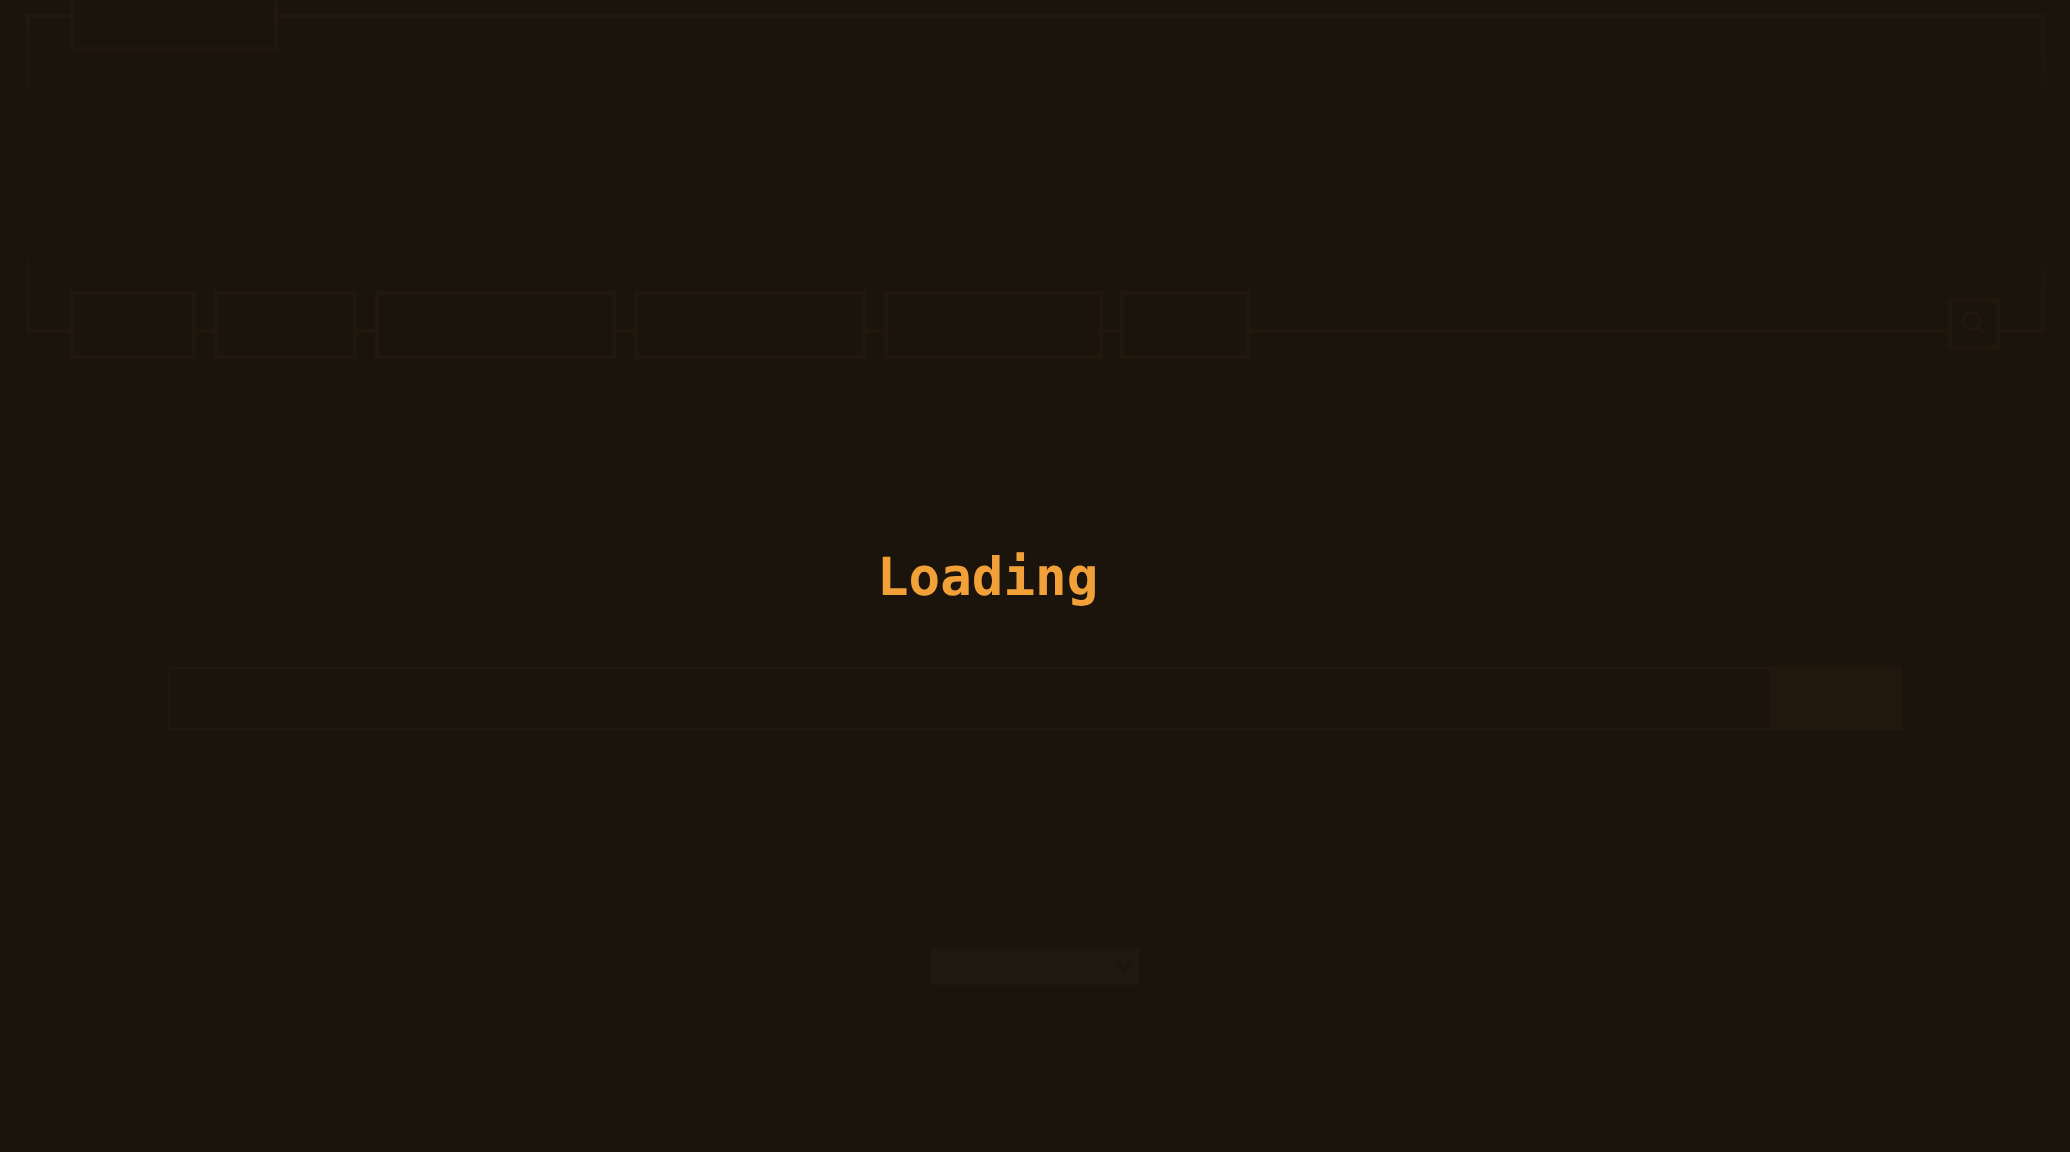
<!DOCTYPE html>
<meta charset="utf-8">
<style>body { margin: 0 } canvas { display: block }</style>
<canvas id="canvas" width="2070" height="1152"></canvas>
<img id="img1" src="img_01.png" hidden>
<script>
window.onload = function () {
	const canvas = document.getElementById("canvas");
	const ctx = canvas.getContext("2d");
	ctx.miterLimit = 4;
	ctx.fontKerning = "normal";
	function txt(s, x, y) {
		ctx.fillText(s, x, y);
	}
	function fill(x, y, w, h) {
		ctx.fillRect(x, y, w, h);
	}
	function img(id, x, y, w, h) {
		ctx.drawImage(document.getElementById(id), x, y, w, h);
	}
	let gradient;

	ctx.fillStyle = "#1B140C";
	fill(0, 0, 2070, 1152);
	ctx.fillStyle = "#20170D";
	fill(26, 14, 2018, 4);
	fill(26, 329, 2018, 4);
	gradient = ctx.createLinearGradient(28, 18, 28, 329);
	gradient.addColorStop(0, "#20170D");
	gradient.addColorStop(0.35, "#1B140C");
	gradient.addColorStop(0.65, "#1B140C");
	gradient.addColorStop(1, "#20170D");
	ctx.fillStyle = gradient;
	fill(26, 18, 4, 311);
	ctx.fillStyle = "#1B140C";
	fill(74, 14, 200, 4);
	ctx.strokeStyle = "#20170D";
	ctx.lineWidth = 4;
	ctx.strokeRect(72, -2, 204, 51);
	gradient = ctx.createLinearGradient(2042, 18, 2042, 329);
	gradient.addColorStop(0, "#20170D");
	gradient.addColorStop(0.35, "#1B140C");
	gradient.addColorStop(0.65, "#1B140C");
	gradient.addColorStop(1, "#20170D");
	ctx.fillStyle = gradient;
	fill(2041, 18, 4, 311);
	ctx.fillStyle = "#1B140C";
	fill(74, 329, 118, 4);
	ctx.strokeRect(72, 293, 122, 64);
	fill(218, 329, 135, 4);
	ctx.strokeRect(216, 293, 139, 64);
	fill(379, 329, 233, 4);
	ctx.strokeRect(377, 293, 237, 64);
	fill(638, 329, 224, 4);
	ctx.strokeRect(636, 293, 228, 64);
	fill(888, 329, 211, 4);
	ctx.strokeRect(886, 293, 215, 64);
	fill(1124, 329, 122, 4);
	ctx.strokeRect(1122, 293, 126, 64);
	fill(1952, 329, 44, 4);
	ctx.strokeRect(1950, 300, 48, 48);
	img("img1", 1961, 311, 26, 25);
	ctx.lineWidth = 2;
	ctx.strokeRect(169, 668, 1601, 61);
	ctx.fillStyle = "#20170D";
	fill(1771, 667, 131, 63);
	ctx.fillStyle = "#1F1811";
	ctx.beginPath();
	ctx.rect(932, 950, 206, 34);
	ctx.fill();
	ctx.strokeStyle = "#1F1810";
	ctx.stroke();
	ctx.beginPath();
	ctx.moveTo(1116.5, 963);
	ctx.lineTo(1123.5, 970);
	ctx.lineTo(1130.5, 963);
	ctx.strokeStyle = "#1A140C";
	ctx.lineWidth = 3.5;
	ctx.stroke();
	ctx.font = "bold 52.5px DejaVu Sans Mono";
	ctx.fillStyle = "#F2A139";
	txt("Loading", 877, 595);
};
</script>
